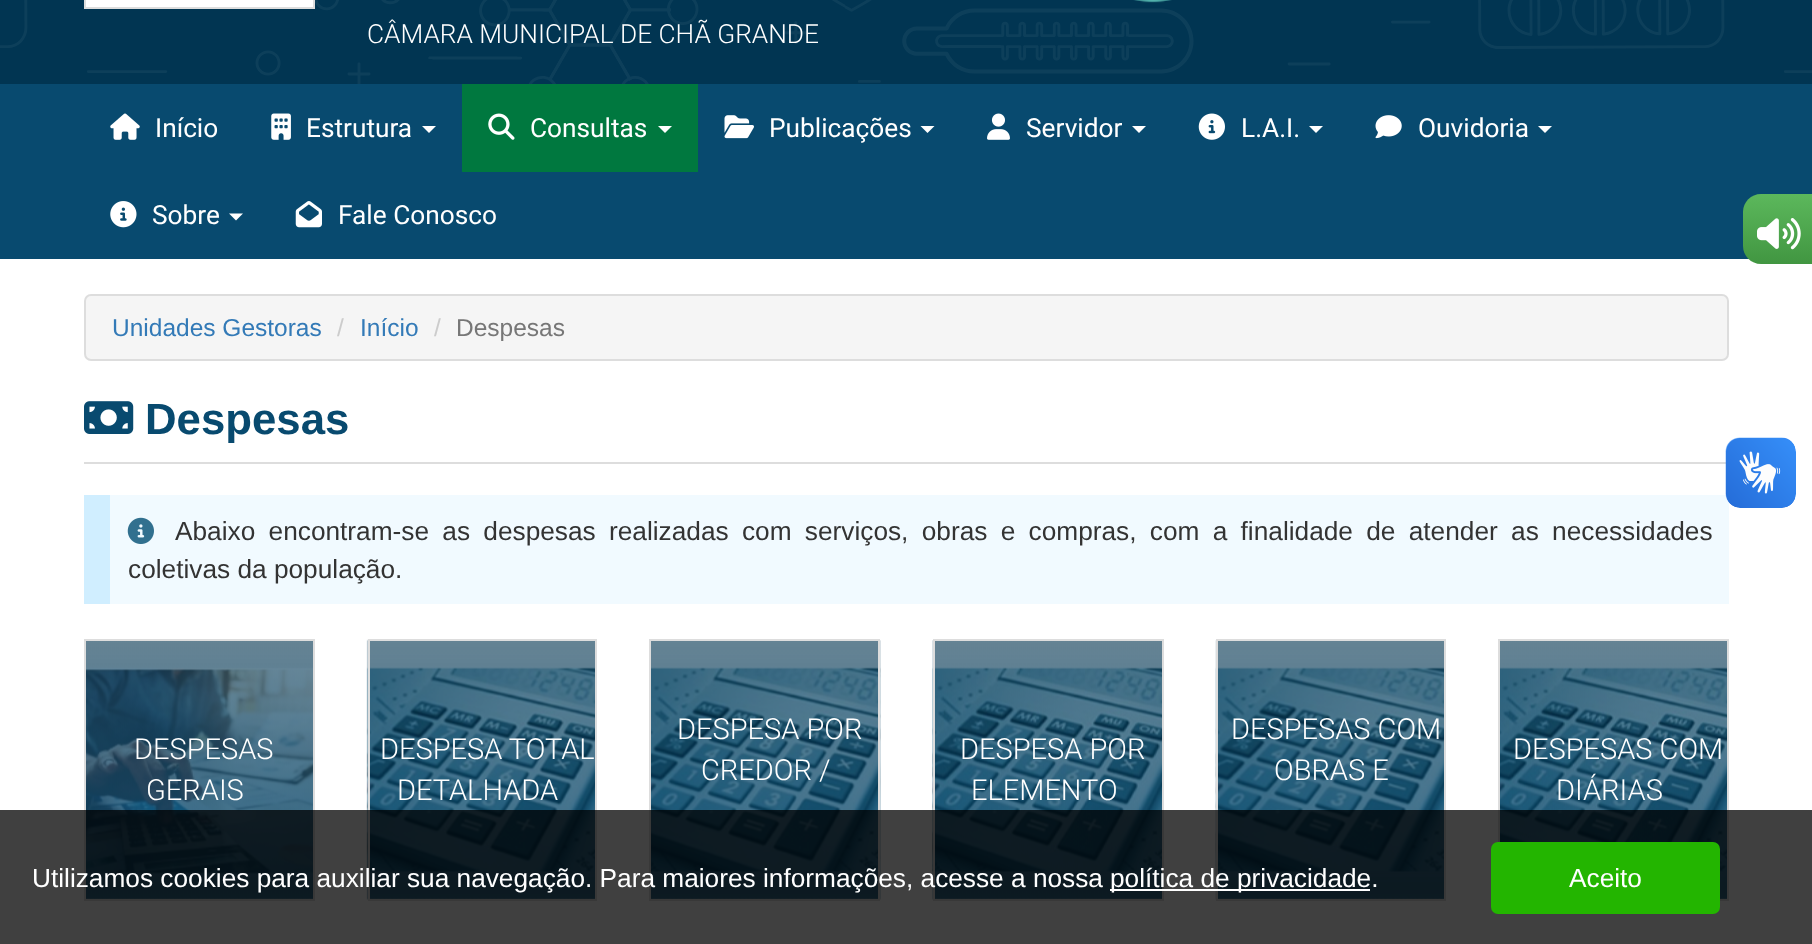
<!DOCTYPE html>
<meta charset="utf-8">
<style>body { margin: 0 } canvas { display: block }</style>
<canvas id="canvas" width="1812" height="944"></canvas>
<img id="img1" src="img_01.png" hidden>
<img id="img2" src="img_02.png" hidden>
<img id="img3" src="img_03.png" hidden>
<img id="img4" src="img_04.png" hidden>
<img id="img5" src="img_05.png" hidden>
<img id="img6" src="img_06.png" hidden>
<img id="img7" src="img_07.png" hidden>
<img id="img8" src="img_08.png" hidden>
<img id="img9" src="img_09.png" hidden>
<img id="img10" src="img_10.png" hidden>
<img id="img11" src="img_11.png" hidden>
<img id="img12" src="img_12.png" hidden>
<img id="img13" src="img_13.png" hidden>
<img id="img14" src="img_14.png" hidden>
<img id="img15" src="img_15.png" hidden>
<img id="img16" src="img_16.png" hidden>
<img id="img17" src="img_17.png" hidden>
<img id="img18" src="img_18.png" hidden>
<img id="img19" src="img_19.png" hidden>
<img id="img20" src="img_20.png" hidden>
<img id="img21" src="img_21.png" hidden>
<img id="img22" src="img_22.png" hidden>
<script>
window.onload = function () {
	const canvas = document.getElementById("canvas");
	const ctx = canvas.getContext("2d");
	ctx.miterLimit = 4;
	ctx.fontKerning = "normal";
	function txt(s, x, y) {
		ctx.fillText(s, x, y);
	}
	function fill(x, y, w, h) {
		ctx.fillRect(x, y, w, h);
	}
	function round(x, y, w, h, r) {
		ctx.beginPath();
		ctx.roundRect(x, y, w, h, r);
		ctx.fill();
	}
	function img(id, x, y, w, h) {
		ctx.drawImage(document.getElementById(id), x, y, w, h);
	}
	let gradient;

	ctx.fillStyle = "#FFFFFF";
	fill(0, 0, 1812, 944);
	ctx.fillStyle = "#013552";
	fill(0, 0, 1812, 84);
	img("img1", 0, 0, 1812, 84);
	ctx.fillStyle = "#FFFFFF";
	ctx.beginPath();
	ctx.rect(85, -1, 229, 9);
	ctx.fill();
	ctx.strokeStyle = "#DDDDDD";
	ctx.lineWidth = 2;
	ctx.stroke();
	img("img2", 1133, 0, 39, 3);
	ctx.fillStyle = "#084A6F";
	fill(0, 84, 1812, 175);
	img("img3", 110, 113, 30, 27);
	img("img4", 271, 113, 20, 27);
	ctx.fillStyle = "#FFFFFF";
	ctx.beginPath();
	ctx.moveTo(422, 126);
	ctx.lineTo(436, 126);
	ctx.lineTo(429, 133);
	ctx.closePath();
	ctx.fill();
	ctx.fillStyle = "#00783F";
	fill(462, 84, 236, 88);
	img("img5", 488, 113, 27, 27);
	ctx.fillStyle = "#FFFFFF";
	ctx.beginPath();
	ctx.moveTo(658, 126);
	ctx.lineTo(672, 126);
	ctx.lineTo(665, 133);
	ctx.closePath();
	ctx.fill();
	img("img6", 724, 115, 30, 24);
	ctx.beginPath();
	ctx.moveTo(920.5, 126);
	ctx.lineTo(934.5, 126);
	ctx.lineTo(927.5, 133);
	ctx.closePath();
	ctx.fill();
	img("img7", 987, 113, 23, 27);
	ctx.beginPath();
	ctx.moveTo(1132, 126);
	ctx.lineTo(1146, 126);
	ctx.lineTo(1139, 133);
	ctx.closePath();
	ctx.fill();
	img("img8", 1198, 113, 27, 27);
	ctx.beginPath();
	ctx.moveTo(1309, 126);
	ctx.lineTo(1323, 126);
	ctx.lineTo(1316, 133);
	ctx.closePath();
	ctx.fill();
	img("img9", 1375, 115, 27, 24);
	ctx.beginPath();
	ctx.moveTo(1538, 126);
	ctx.lineTo(1552, 126);
	ctx.lineTo(1545, 133);
	ctx.closePath();
	ctx.fill();
	img("img10", 110, 201, 27, 27);
	ctx.beginPath();
	ctx.moveTo(229, 213.5);
	ctx.lineTo(243, 213.5);
	ctx.lineTo(236, 220.5);
	ctx.closePath();
	ctx.fill();
	img("img11", 295, 201, 27, 27);
	gradient = ctx.createLinearGradient(1778, 194, 1778, 264);
	gradient.addColorStop(0, "#5CB85C");
	gradient.addColorStop(1, "#419641");
	ctx.fillStyle = gradient;
	ctx.beginPath();
	ctx.moveTo(1761, 194);
	ctx.lineTo(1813, 194);
	ctx.lineTo(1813, 264);
	ctx.lineTo(1761, 264);
	ctx.bezierCurveTo(1751, 264, 1743, 256, 1743, 246);
	ctx.lineTo(1743, 212);
	ctx.bezierCurveTo(1743, 202, 1751, 194, 1761, 194);
	ctx.closePath();
	ctx.fill();
	img("img12", 1757, 218, 44, 32);
	ctx.fillStyle = "#F5F5F5";
	ctx.beginPath();
	ctx.roundRect(85, 295, 1643, 65, 6);
	ctx.fill();
	ctx.stroke();
	ctx.fillStyle = "#DDDDDD";
	fill(84, 462, 1645, 2);
	img("img13", 84, 401, 50, 33);
	ctx.fillStyle = "#F1FAFF";
	fill(110, 495, 1619, 109);
	ctx.fillStyle = "#D0EEFF";
	fill(84, 495, 26, 109);
	img("img14", 127, 517, 27, 27);
	ctx.fillStyle = "#EFEFEF";
	fill(86, 641, 227, 258);
	img("img15", 86, 641, 227, 258);
	ctx.strokeRect(85, 640, 229, 260);
	fill(370, 641, 225, 258);
	img("img16", 366, 639, 229, 261);
	ctx.strokeRect(369, 640, 227, 260);
	fill(651, 641, 227, 258);
	img("img17", 651, 640, 230, 260);
	ctx.strokeRect(650, 640, 229, 260);
	fill(935, 641, 227, 258);
	img("img18", 932, 640, 230, 260);
	ctx.strokeRect(934, 640, 229, 260);
	fill(1218, 641, 226, 258);
	img("img19", 1215, 640, 229, 260);
	ctx.strokeRect(1217, 640, 228, 260);
	fill(1500, 641, 227, 258);
	img("img20", 1500, 641, 227, 258);
	ctx.strokeRect(1499, 640, 229, 260);
	img("img21", 1725, 437, 71, 71);
	img("img22", 1726, 438, 70, 70);
	ctx.fillStyle = "rgba(0, 0, 0, 0.75)";
	fill(0, 810, 1812, 134);
	ctx.fillStyle = "#FFFFFF";
	fill(1110, 889, 260, 2);
	ctx.fillStyle = "#23B500";
	round(1491, 842, 229, 72, 7);
	ctx.font = "300 26.25px Roboto";
	ctx.fillStyle = "#FFFFFF";
	txt("CÂMARA MUNICIPAL DE CHÃ GRANDE", 367, 43);
	ctx.font = "26.25px Roboto";
	txt("Início", 155, 137);
	txt("Estrutura", 306, 137);
	txt("Consultas", 530, 137);
	txt("Publicações", 769, 137);
	txt("Servidor", 1026, 137);
	txt("L.A.I.", 1241, 137);
	txt("Ouvidoria", 1418, 137);
	txt("Sobre", 152, 224);
	txt("Fale Conosco", 338, 224);
	ctx.font = "24.5px Liberation Sans";
	ctx.fillStyle = "#337AB7";
	txt("Unidades Gestoras", 112, 336);
	ctx.fillStyle = "#CCCCCC";
	txt("/", 337, 336);
	ctx.fillStyle = "#337AB7";
	txt("Início", 360, 336);
	ctx.fillStyle = "#CCCCCC";
	txt("/", 434, 336);
	ctx.fillStyle = "#777777";
	txt("Despesas", 456, 336);
	ctx.font = "bold 43.75px Liberation Sans";
	ctx.fillStyle = "#084A6F";
	txt("Despesas", 145, 434);
	ctx.wordSpacing = "6px";
	ctx.font = "26.25px Liberation Sans";
	ctx.fillStyle = "#333333";
	txt("Abaixo encontram-se as despesas realizadas com serviços, obras e compras, com a finalidade de atender as necessidades", 175, 540);
	ctx.wordSpacing = "0px";
	txt("coletivas da população.", 128, 578);
	ctx.font = "300 29px Roboto";
	ctx.fillStyle = "#FFFFFF";
	txt("DESPESAS", 134, 759);
	txt("GERAIS", 146, 800);
	txt("DESPESA TOTAL", 380, 759);
	txt("DETALHADA", 397, 800);
	txt("DESPESA POR", 677, 739);
	txt("CREDOR /", 701, 780);
	txt("DESPESA POR", 960, 759);
	txt("ELEMENTO", 971, 800);
	txt("DESPESAS COM", 1231, 739);
	txt("OBRAS E", 1274, 780);
	txt("DESPESAS COM", 1513, 759);
	txt("DIÁRIAS", 1556, 800);
	ctx.font = "26.25px Liberation Sans";
	txt("Utilizamos cookies para auxiliar sua navegação. Para maiores informações, acesse a nossa", 32, 887);
	txt("política de privacidade.", 1110, 887);
	txt("Aceito", 1569, 887);
};
</script>
